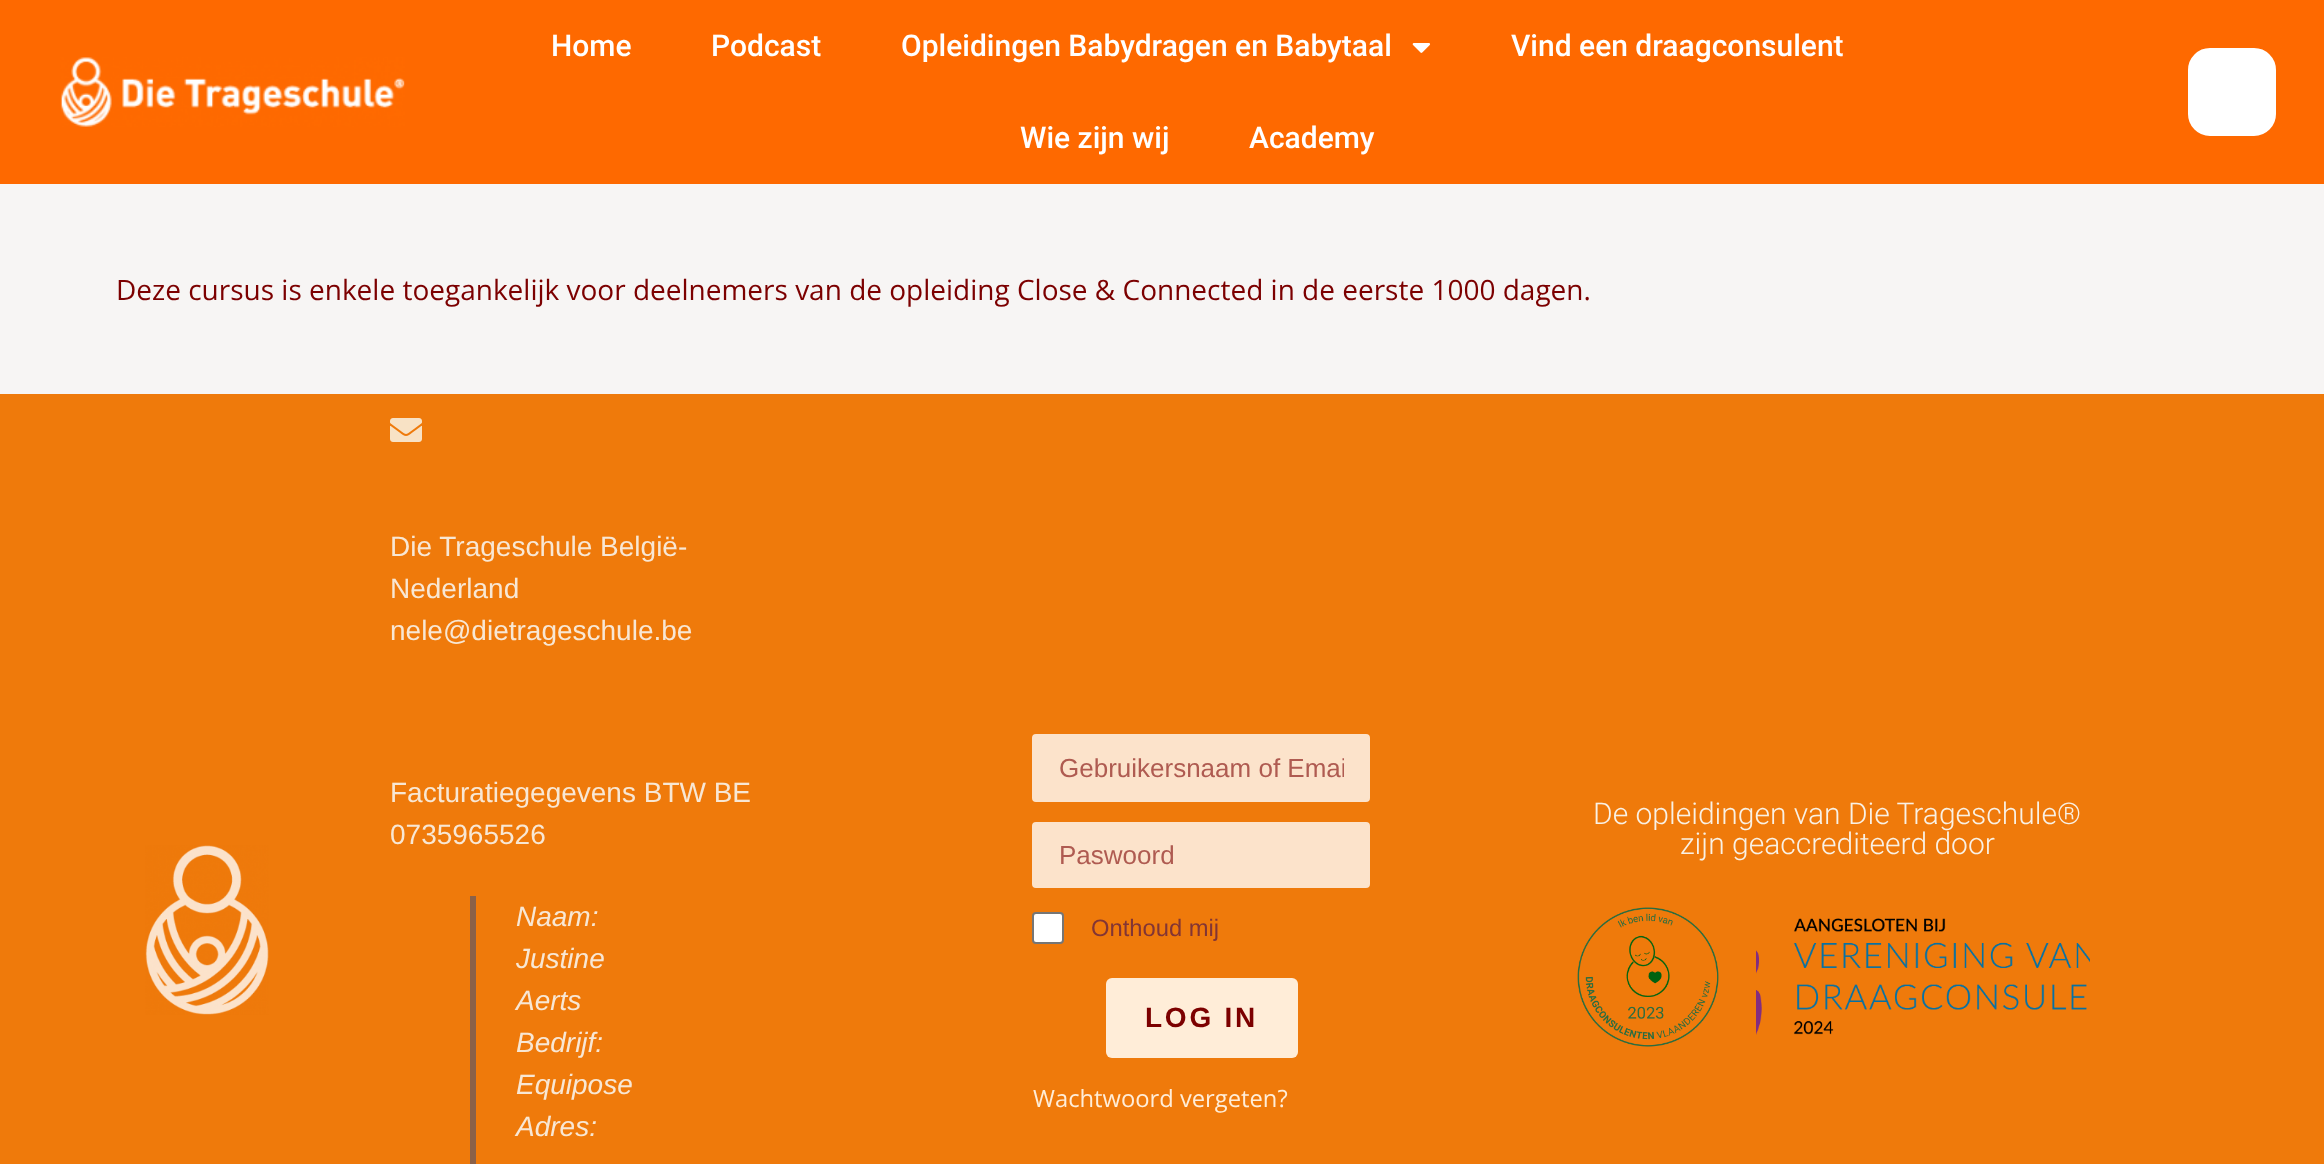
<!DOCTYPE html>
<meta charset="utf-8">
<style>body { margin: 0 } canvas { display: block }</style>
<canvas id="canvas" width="2324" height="1164"></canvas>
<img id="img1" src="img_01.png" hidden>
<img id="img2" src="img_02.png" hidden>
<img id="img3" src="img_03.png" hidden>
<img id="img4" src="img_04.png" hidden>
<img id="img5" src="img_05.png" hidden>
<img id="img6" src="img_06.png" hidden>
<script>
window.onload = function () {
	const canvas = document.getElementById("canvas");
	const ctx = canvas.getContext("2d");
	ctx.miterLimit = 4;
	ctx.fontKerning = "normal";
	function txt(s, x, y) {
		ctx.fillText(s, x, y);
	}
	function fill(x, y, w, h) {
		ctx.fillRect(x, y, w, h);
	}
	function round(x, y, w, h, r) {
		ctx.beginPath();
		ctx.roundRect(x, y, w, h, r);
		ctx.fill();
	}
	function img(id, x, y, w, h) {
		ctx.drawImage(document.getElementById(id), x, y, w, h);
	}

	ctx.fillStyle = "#F7F5F4";
	fill(0, 0, 2324, 1164);
	ctx.fillStyle = "#FE6900";
	fill(0, 0, 2324, 184);
	img("img1", 60, 57, 345, 70);
	img("img2", 1412, 43, 19, 10);
	ctx.fillStyle = "#FFFFFF";
	ctx.beginPath();
	ctx.roundRect(2187, 47, 90, 90, 23);
	ctx.fill();
	ctx.strokeStyle = "#FE6900";
	ctx.lineWidth = 2;
	ctx.stroke();
	ctx.fillStyle = "#EF7A0B";
	fill(0, 394, 2324, 770);
	img("img3", 390, 418, 32, 24);
	ctx.fillStyle = "#8B6148";
	fill(470, 896, 6, 268);
	ctx.fillStyle = "#FCE3CB";
	ctx.beginPath();
	ctx.roundRect(1033, 735, 336, 66, 3);
	ctx.fill();
	ctx.strokeStyle = "#FCE3CB";
	ctx.stroke();
	ctx.beginPath();
	ctx.roundRect(1033, 823, 336, 64, 3);
	ctx.fill();
	ctx.stroke();
	ctx.fillStyle = "#FFFFFF";
	ctx.beginPath();
	ctx.roundRect(1033, 913, 30, 30, 3);
	ctx.fill();
	ctx.strokeStyle = "#767676";
	ctx.stroke();
	ctx.fillStyle = "#FFEDD8";
	round(1106, 978, 192, 80, 6);
	img("img4", 1577, 907, 142, 140);
	img("img5", 1756, 918, 334, 117);
	img("img6", 145, 845, 124, 170);
	ctx.font = "500 30px Roboto";
	ctx.fillStyle = "#FFFFFF";
	txt("Home", 551, 56);
	txt("Podcast", 711, 56);
	txt("Opleidingen Babydragen en Babytaal", 901, 56);
	txt("Vind een draagconsulent", 1511, 56);
	txt("Wie zijn wij", 1020, 148);
	txt("Academy", 1249, 148);
	ctx.font = "28px Open Sans";
	ctx.fillStyle = "#7C0000";
	txt("Deze cursus is enkele toegankelijk voor deelnemers van de opleiding Close & Connected in de eerste 1000 dagen.", 116, 300);
	ctx.font = "28px Liberation Sans";
	ctx.fillStyle = "#F8E7D4";
	txt("Die Trageschule België-", 390, 556);
	txt("Nederland", 390, 598);
	txt("nele@dietrageschule.be", 390, 640);
	txt("Facturatiegegevens BTW BE", 390, 802);
	txt("0735965526", 390, 844);
	ctx.font = "italic 28px Liberation Sans";
	txt("Naam:", 516, 926);
	txt("Justine", 516, 968);
	txt("Aerts", 516, 1010);
	txt("Bedrijf:", 516, 1052);
	txt("Equipose", 516, 1094);
	txt("Adres:", 516, 1136);
	ctx.save();
	ctx.beginPath();
	ctx.rect(1058, 752, 286, 30);
	ctx.clip();
	ctx.font = "26px Liberation Sans";
	ctx.fillStyle = "#AF5B51";
	txt("Gebruikersnaam of Emai", 1059, 777);
	ctx.restore();
	ctx.font = "26px Liberation Sans";
	ctx.fillStyle = "#AF5B51";
	txt("Paswoord", 1059, 864);
	ctx.font = "23.75px Liberation Sans";
	ctx.fillStyle = "#823535";
	txt("Onthoud mij", 1091, 936);
	ctx.letterSpacing = "2.75px";
	ctx.font = "bold 28px Liberation Sans";
	ctx.fillStyle = "#7C0000";
	txt("LOG IN", 1145, 1027);
	ctx.letterSpacing = "0px";
	ctx.font = "23.75px Open Sans";
	ctx.fillStyle = "#FFEDD8";
	txt("Wachtwoord vergeten?", 1033, 1107);
	ctx.font = "300 30px Roboto";
	ctx.fillStyle = "#F9F1E5";
	txt("De opleidingen van Die Trageschule®", 1593, 824);
	txt("zijn geaccrediteerd door", 1680, 854);
};
</script>
